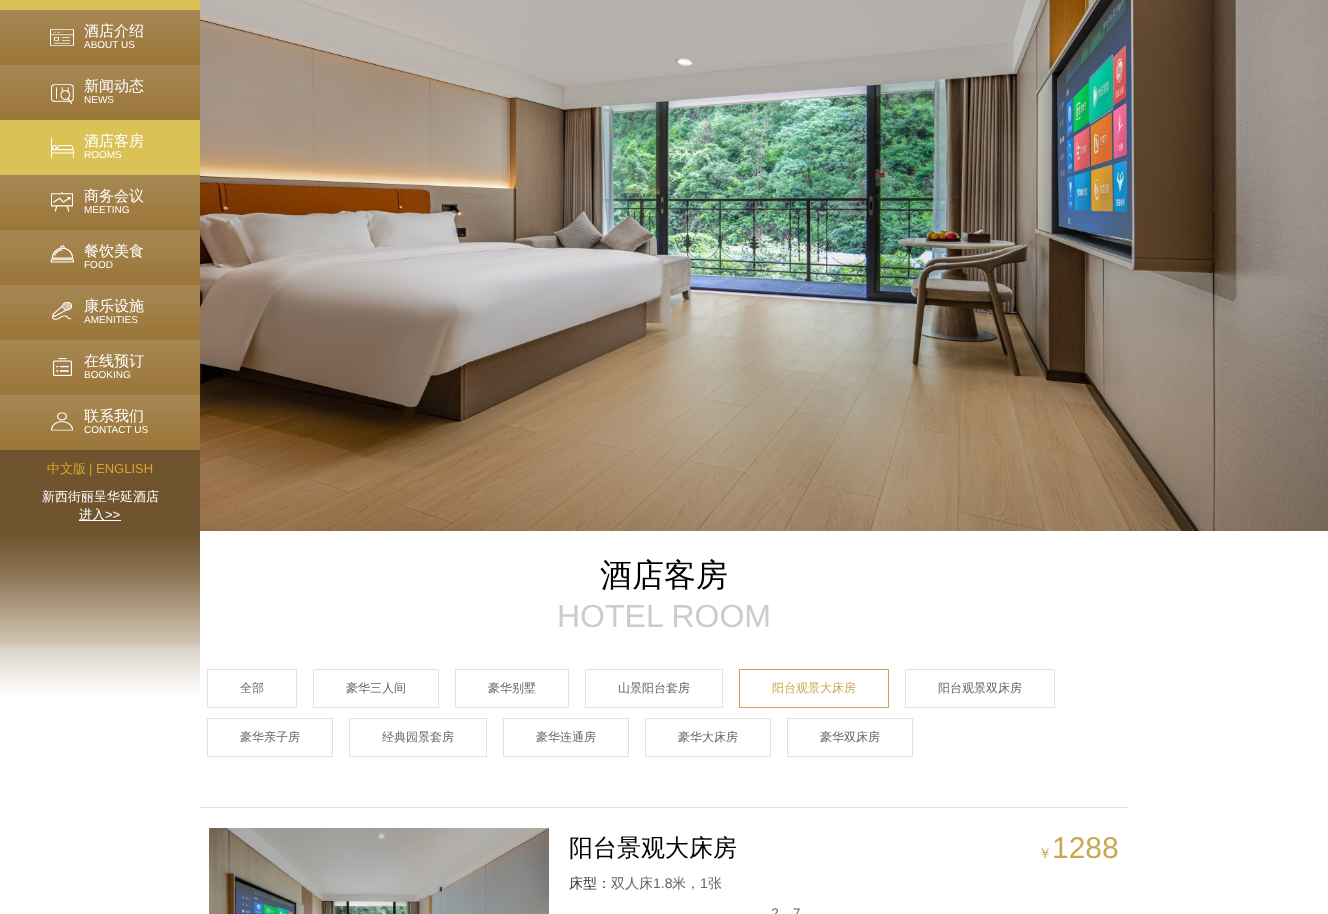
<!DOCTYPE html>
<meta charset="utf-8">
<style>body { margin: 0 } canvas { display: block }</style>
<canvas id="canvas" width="1328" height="914"></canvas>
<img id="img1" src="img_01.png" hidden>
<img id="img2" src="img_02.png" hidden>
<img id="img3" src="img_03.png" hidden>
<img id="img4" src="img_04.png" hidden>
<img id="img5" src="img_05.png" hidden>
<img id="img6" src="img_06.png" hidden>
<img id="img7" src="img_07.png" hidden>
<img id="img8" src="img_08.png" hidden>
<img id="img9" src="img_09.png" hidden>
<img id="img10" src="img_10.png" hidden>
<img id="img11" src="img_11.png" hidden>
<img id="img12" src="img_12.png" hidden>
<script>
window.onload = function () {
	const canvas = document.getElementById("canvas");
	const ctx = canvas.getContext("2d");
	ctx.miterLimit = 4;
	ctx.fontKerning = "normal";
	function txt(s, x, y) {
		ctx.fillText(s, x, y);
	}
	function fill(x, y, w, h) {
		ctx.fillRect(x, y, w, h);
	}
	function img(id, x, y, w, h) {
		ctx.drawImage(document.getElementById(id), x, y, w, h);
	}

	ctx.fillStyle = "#FFFFFF";
	fill(0, 0, 1328, 914);
	img("img1", 0, 450, 200, 244);
	ctx.fillStyle = "#DBC256";
	fill(0, 0, 200, 10);
	img("img2", 0, 10, 200, 55);
	img("img3", 50, 29, 24, 17);
	img("img2", 0, 65, 200, 55);
	img("img4", 51, 84, 23, 20);
	fill(0, 120, 200, 55);
	img("img5", 51, 138, 23, 20);
	img("img2", 0, 175, 200, 55);
	img("img6", 51, 192, 22, 20);
	img("img2", 0, 230, 200, 55);
	img("img7", 50, 245, 24, 18);
	img("img2", 0, 285, 200, 55);
	img("img8", 52, 302, 20, 18);
	img("img2", 0, 340, 200, 55);
	img("img9", 53, 358, 19, 18);
	img("img2", 0, 395, 200, 55);
	img("img10", 51, 412, 22, 19);
	ctx.fillStyle = "#FFFFFF";
	fill(79, 520, 42, 1);
	img("img11", 200, 0, 1128, 531);
	ctx.strokeStyle = "#E2E2E2";
	ctx.strokeRect(207.5, 669.5, 89, 38);
	ctx.strokeRect(313.5, 669.5, 125, 38);
	ctx.strokeRect(455.5, 669.5, 113, 38);
	ctx.strokeRect(585.5, 669.5, 137, 38);
	ctx.strokeStyle = "#CAA851";
	ctx.strokeRect(739.5, 669.5, 149, 38);
	ctx.strokeStyle = "#E2E2E2";
	ctx.strokeRect(905.5, 669.5, 149, 38);
	ctx.strokeRect(207.5, 718.5, 125, 38);
	ctx.strokeRect(349.5, 718.5, 137, 38);
	ctx.strokeRect(503.5, 718.5, 125, 38);
	ctx.strokeRect(645.5, 718.5, 125, 38);
	ctx.strokeRect(787.5, 718.5, 125, 38);
	ctx.fillStyle = "#E2E2E2";
	fill(199, 807, 930, 1);
	img("img12", 209, 828, 340, 86);
	ctx.font = "500 15px WenQuanYi Zen Hei";
	ctx.fillStyle = "#FFFFFF";
	txt("酒店介绍", 84, 36);
	ctx.font = "10px Liberation Sans";
	txt("ABOUT US", 84, 48);
	ctx.font = "500 15px WenQuanYi Zen Hei";
	txt("新闻动态", 84, 91);
	ctx.font = "10px Liberation Sans";
	txt("NEWS", 84, 103);
	ctx.font = "500 15px WenQuanYi Zen Hei";
	txt("酒店客房", 84, 146);
	ctx.font = "10px Liberation Sans";
	txt("ROOMS", 84, 158);
	ctx.font = "500 15px WenQuanYi Zen Hei";
	txt("商务会议", 84, 201);
	ctx.font = "10px Liberation Sans";
	txt("MEETING", 84, 213);
	ctx.font = "500 15px WenQuanYi Zen Hei";
	txt("餐饮美食", 84, 256);
	ctx.font = "10px Liberation Sans";
	txt("FOOD", 84, 268);
	ctx.font = "500 15px WenQuanYi Zen Hei";
	txt("康乐设施", 84, 311);
	ctx.font = "10px Liberation Sans";
	txt("AMENITIES", 84, 323);
	ctx.font = "500 15px WenQuanYi Zen Hei";
	txt("在线预订", 84, 366);
	ctx.font = "10px Liberation Sans";
	txt("BOOKING", 84, 378);
	ctx.font = "500 15px WenQuanYi Zen Hei";
	txt("联系我们", 84, 421);
	ctx.font = "10px Liberation Sans";
	txt("CONTACT US", 84, 433);
	ctx.font = "500 13px WenQuanYi Zen Hei";
	ctx.fillStyle = "#D9A32B";
	txt("中文版", 47, 473);
	ctx.font = "13px Liberation Sans";
	txt("| ENGLISH", 89, 473);
	ctx.font = "500 13px WenQuanYi Zen Hei";
	ctx.fillStyle = "#FFFFFF";
	txt("新西街丽呈华延酒店", 42, 501);
	txt("进入", 79, 519);
	ctx.font = "13px Liberation Sans";
	txt(">>", 105, 519);
	ctx.font = "500 32px WenQuanYi Zen Hei";
	ctx.fillStyle = "#000000";
	txt("酒店客房", 600, 586);
	ctx.font = "32px Liberation Sans";
	ctx.fillStyle = "#CCCCCC";
	txt("HOTEL ROOM", 557, 627);
	ctx.font = "500 12px WenQuanYi Zen Hei";
	ctx.fillStyle = "#666666";
	txt("全部", 240, 692);
	txt("豪华三人间", 346, 692);
	txt("豪华别墅", 488, 692);
	txt("山景阳台套房", 618, 692);
	ctx.fillStyle = "#CAA851";
	txt("阳台观景大床房", 772, 692);
	ctx.fillStyle = "#666666";
	txt("阳台观景双床房", 938, 692);
	txt("豪华亲子房", 240, 741);
	txt("经典园景套房", 382, 741);
	txt("豪华连通房", 536, 741);
	txt("豪华大床房", 678, 741);
	txt("豪华双床房", 820, 741);
	ctx.font = "500 24px WenQuanYi Zen Hei";
	ctx.fillStyle = "#000000";
	txt("阳台景观大床房", 569, 856);
	ctx.font = "500 14px WenQuanYi Zen Hei";
	ctx.fillStyle = "#CAA851";
	txt("￥", 1038, 858);
	ctx.font = "30px Liberation Sans";
	txt("1288", 1052, 858);
	ctx.font = "500 14px WenQuanYi Zen Hei";
	ctx.fillStyle = "#333333";
	txt("床型：", 569, 888);
	ctx.fillStyle = "#666666";
	txt("双人床", 611, 888);
	ctx.font = "14px Liberation Sans";
	txt("1.8", 653, 888);
	ctx.font = "500 14px WenQuanYi Zen Hei";
	txt("米，", 672, 888);
	ctx.font = "14px Liberation Sans";
	txt("1", 700, 888);
	ctx.font = "500 14px WenQuanYi Zen Hei";
	txt("张", 708, 888);
	ctx.font = "14px Liberation Sans";
	txt("2—7", 771, 918);
};
</script>
